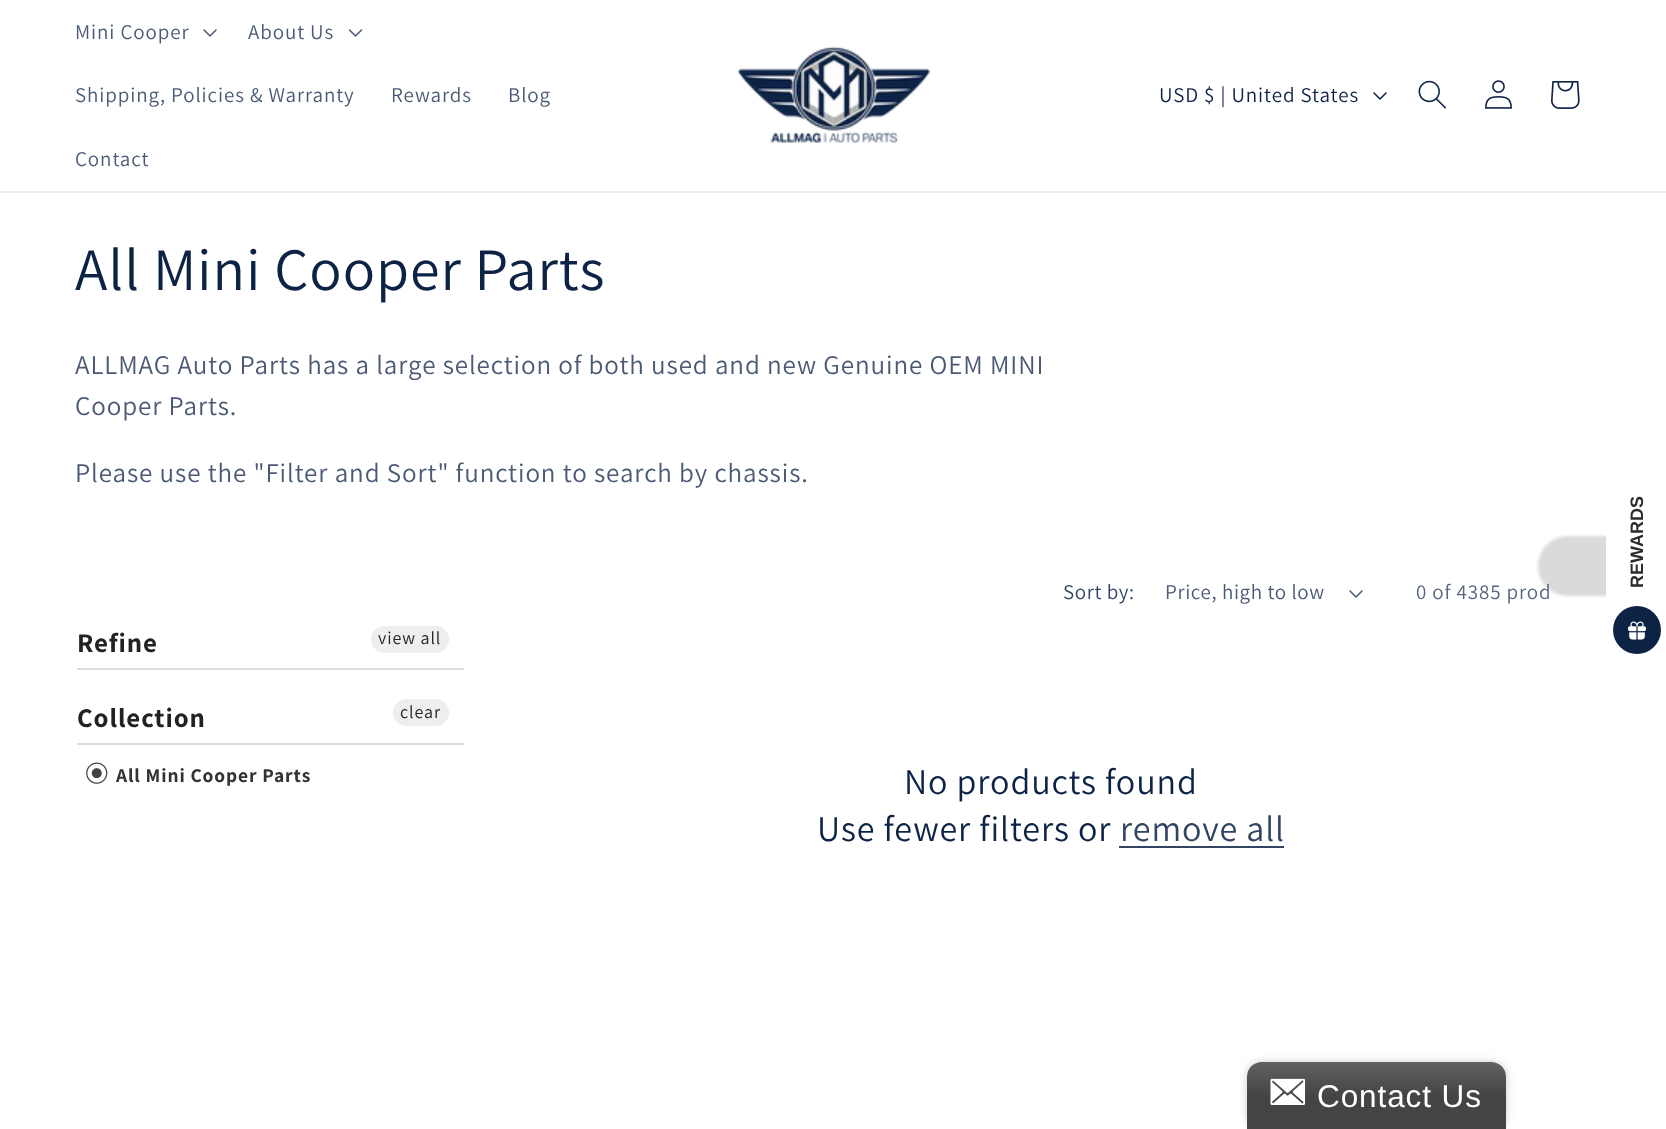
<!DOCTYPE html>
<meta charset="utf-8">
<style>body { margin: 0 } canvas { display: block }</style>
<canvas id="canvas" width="1666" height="1129"></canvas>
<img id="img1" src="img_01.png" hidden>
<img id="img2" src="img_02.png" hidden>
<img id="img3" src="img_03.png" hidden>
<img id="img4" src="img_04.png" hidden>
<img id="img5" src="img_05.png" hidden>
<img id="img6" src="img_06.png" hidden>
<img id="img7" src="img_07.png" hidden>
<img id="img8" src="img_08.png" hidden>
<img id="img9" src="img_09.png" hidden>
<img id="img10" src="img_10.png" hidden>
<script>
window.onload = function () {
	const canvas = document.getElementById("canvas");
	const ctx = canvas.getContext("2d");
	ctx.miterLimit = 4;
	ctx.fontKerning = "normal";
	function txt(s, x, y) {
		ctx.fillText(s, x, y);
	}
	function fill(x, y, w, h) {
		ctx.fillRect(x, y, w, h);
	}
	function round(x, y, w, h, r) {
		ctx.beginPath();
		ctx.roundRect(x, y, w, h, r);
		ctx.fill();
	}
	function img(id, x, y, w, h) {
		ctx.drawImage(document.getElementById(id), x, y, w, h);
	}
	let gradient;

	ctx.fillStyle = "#FFFFFF";
	fill(0, 0, 1666, 1129);
	ctx.fillStyle = "#ECEDF0";
	fill(0, 191, 1666, 2);
	img("img1", 203, 29, 14, 8);
	img("img2", 348, 29, 15, 8);
	img("img3", 737, 46, 194, 97);
	img("img4", 1373, 92, 14, 8);
	img("img5", 1418, 80, 28, 29);
	img("img6", 1485, 80, 27, 29);
	img("img7", 1551, 81, 29, 28);
	img("img1", 1349, 590, 14, 8);
	ctx.fillStyle = "#DDDDDD";
	fill(77, 668, 387, 2);
	ctx.fillStyle = "#EEEEEE";
	round(371, 626, 78, 27, 13.5);
	round(393, 699, 56, 27, 13.5);
	img("img8", 86, 762, 22, 22);
	ctx.fillStyle = "#DDDDDD";
	fill(77, 743, 387, 2);
	ctx.fillStyle = "#314462";
	fill(1119, 846, 165, 2);
	ctx.fillStyle = "#DADADA";
	ctx.filter = "blur(1.5px)";
	ctx.beginPath();
	ctx.roundRect(1538, 536, 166, 60, 33);
	ctx.fill();
	ctx.filter = "none";
	ctx.fillStyle = "#FFFFFF";
	ctx.beginPath();
	ctx.moveTo(1606, 631);
	ctx.lineTo(1606, 499);
	ctx.bezierCurveTo(1606, 481, 1621, 466, 1640, 466);
	ctx.lineTo(1666, 466);
	ctx.lineTo(1666, 664);
	ctx.lineTo(1640, 664);
	ctx.bezierCurveTo(1621, 664, 1606, 649, 1606, 631);
	ctx.closePath();
	ctx.fill();
	ctx.fillStyle = "#0D2346";
	ctx.beginPath();
	ctx.arc(1637, 630, 24, 0, Math.PI * 2);
	ctx.fill();
	img("img9", 1628, 621, 18, 19);
	ctx.fillStyle = "rgba(0, 0, 0, 0.2)";
	ctx.filter = "blur(4px)";
	ctx.beginPath();
	ctx.roundRect(1247, 1062, 259, 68, 15);
	ctx.fill();
	ctx.filter = "none";
	gradient = ctx.createLinearGradient(1376, 1062, 1376, 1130);
	gradient.addColorStop(0, "#626262");
	gradient.addColorStop(0.5, "#444444");
	ctx.fillStyle = gradient;
	ctx.beginPath();
	ctx.moveTo(1262, 1062);
	ctx.lineTo(1491, 1062);
	ctx.bezierCurveTo(1499.5, 1062, 1506, 1068.5, 1506, 1077);
	ctx.lineTo(1506, 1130);
	ctx.lineTo(1247, 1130);
	ctx.lineTo(1247, 1077);
	ctx.bezierCurveTo(1247, 1068.5, 1253.5, 1062, 1262, 1062);
	ctx.closePath();
	ctx.fill();
	img("img10", 1270, 1078, 36, 27);
	ctx.letterSpacing = "0.9px";
	ctx.font = "21px Assistant";
	ctx.fillStyle = "#4A5A74";
	txt("Mini Cooper", 75, 39);
	txt("About Us", 248, 39);
	txt("Shipping, Policies & Warranty", 75, 102);
	txt("Rewards", 391, 102);
	txt("Blog", 508, 102);
	txt("Contact", 75, 166);
	ctx.fillStyle = "#0D2346";
	txt("USD $ | United States", 1159, 102);
	ctx.font = "60px Assistant";
	txt("All Mini Cooper Parts", 75, 290);
	ctx.font = "27px Assistant";
	ctx.fillStyle = "#4A5A74";
	txt("ALLMAG Auto Parts has a large selection of both used and new Genuine OEM MINI", 75, 374);
	txt("Cooper Parts.", 75, 415);
	txt("Please use the \"Filter and Sort\" function to search by chassis.", 75, 482);
	ctx.letterSpacing = "0.6px";
	ctx.font = "21px Assistant";
	ctx.fillStyle = "#314462";
	txt("Sort by:", 1063, 599);
	ctx.fillStyle = "#4A5A74";
	txt("Price, high to low", 1165, 599);
	ctx.letterSpacing = "0.9px";
	ctx.fillStyle = "#56657E";
	txt("0 of 4385 prod", 1416, 599);
	ctx.font = "bold 27px Assistant";
	ctx.fillStyle = "#222222";
	txt("Refine", 77, 652);
	ctx.font = "18px Assistant";
	txt("view all", 378, 644);
	txt("clear", 400, 718);
	ctx.font = "bold 19.5px Assistant";
	ctx.fillStyle = "#333333";
	txt("All Mini Cooper Parts", 116, 782);
	ctx.font = "bold 27px Assistant";
	ctx.fillStyle = "#222222";
	txt("Collection", 77, 727);
	ctx.font = "36px Assistant";
	ctx.fillStyle = "#0D2346";
	txt("No products found", 904, 794);
	txt("Use fewer filters or", 817, 841);
	ctx.fillStyle = "#314462";
	txt("remove all", 1120, 841);
	ctx.letterSpacing = "0px";
	ctx.font = "bold 18px Liberation Sans";
	ctx.fillStyle = "#2C2B2B";
	ctx.save();
	ctx.translate(1643, 588);
	ctx.rotate(-90 * Math.PI / 180);
	ctx.fillText("REWARDS", 0, 0);
	ctx.restore();
	ctx.letterSpacing = "0.9px";
	ctx.font = "31.5px Liberation Sans";
	ctx.fillStyle = "#FFFFFF";
	txt("Contact Us", 1317, 1107);
};
</script>
